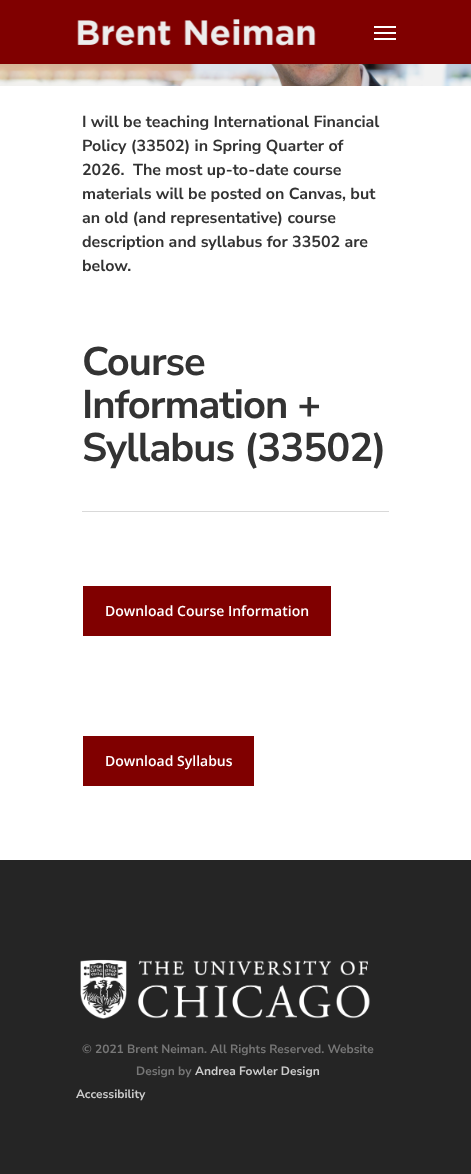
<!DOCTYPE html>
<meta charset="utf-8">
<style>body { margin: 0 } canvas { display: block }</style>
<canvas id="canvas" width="471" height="1174"></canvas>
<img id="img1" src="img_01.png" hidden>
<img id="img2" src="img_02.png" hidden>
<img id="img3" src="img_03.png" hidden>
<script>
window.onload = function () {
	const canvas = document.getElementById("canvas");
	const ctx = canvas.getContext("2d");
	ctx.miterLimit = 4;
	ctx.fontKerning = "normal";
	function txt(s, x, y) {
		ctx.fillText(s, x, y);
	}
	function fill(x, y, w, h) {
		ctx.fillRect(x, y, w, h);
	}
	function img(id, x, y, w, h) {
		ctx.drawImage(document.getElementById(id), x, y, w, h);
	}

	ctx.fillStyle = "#FFFFFF";
	fill(0, 0, 471, 1174);
	ctx.fillStyle = "#800000";
	fill(0, 0, 471, 64);
	img("img1", 77, 19, 239, 27);
	ctx.fillStyle = "#FFFFFF";
	fill(374, 26, 22, 2);
	fill(374, 38, 22, 2);
	fill(374, 32, 22, 2);
	img("img2", 0, 64, 471, 22);
	ctx.fillStyle = "#D9D9D9";
	fill(82, 511, 307, 1);
	ctx.fillStyle = "#800000";
	fill(83, 586, 248, 50);
	fill(83, 736, 171, 50);
	ctx.fillStyle = "#252525";
	fill(0, 860, 471, 314);
	img("img3", 80, 959, 290, 60);
	ctx.font = "200 16px Nunito Sans";
	ctx.fillStyle = "#333333";
	txt("I will be teaching International Financial", 82, 127);
	txt("Policy (33502) in Spring Quarter of", 82, 151);
	txt("2026.  The most up-to-date course", 82, 175);
	txt("materials will be posted on Canvas, but", 82, 199);
	txt("an old (and representative) course", 82, 223);
	txt("description and syllabus for 33502 are", 82, 247);
	txt("below.", 82, 271);
	ctx.letterSpacing = "-1px";
	ctx.font = "200 40px Nunito Sans";
	txt("Course", 82, 375);
	txt("Information +", 82, 418);
	txt("Syllabus (33502)", 82, 461);
	ctx.letterSpacing = "0px";
	ctx.font = "600 14px Open Sans";
	ctx.fillStyle = "#FFFFFF";
	txt("Download Course Information", 105, 616);
	txt("Download Syllabus", 105, 766);
	ctx.font = "200 12px Nunito Sans";
	ctx.fillStyle = "#777777";
	txt("© 2021 Brent Neiman. All Rights Reserved. Website", 82, 1053);
	txt("Design by", 136, 1075);
	ctx.fillStyle = "#CCCCCC";
	txt("Andrea Fowler Design", 195, 1075);
	txt("Accessibility", 76, 1098);
};
</script>
